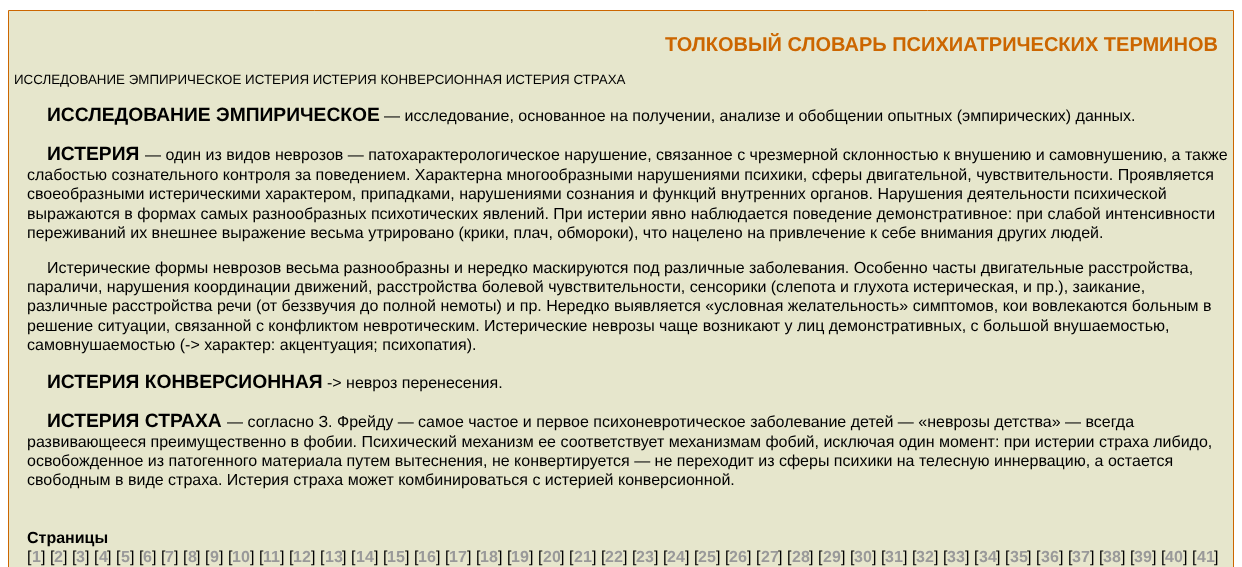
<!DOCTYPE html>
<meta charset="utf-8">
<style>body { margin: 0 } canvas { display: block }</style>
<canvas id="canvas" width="1242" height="567"></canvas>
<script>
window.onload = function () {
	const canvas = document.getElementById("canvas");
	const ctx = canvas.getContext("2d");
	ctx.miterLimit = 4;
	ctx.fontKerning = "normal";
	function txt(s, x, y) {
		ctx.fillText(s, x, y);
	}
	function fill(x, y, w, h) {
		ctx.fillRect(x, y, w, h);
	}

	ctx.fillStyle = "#FFFFFF";
	fill(0, 0, 1242, 567);
	ctx.fillStyle = "#E6E6CC";
	ctx.beginPath();
	ctx.rect(8.5, 10.5, 1225, 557);
	ctx.fill();
	ctx.strokeStyle = "#CC6600";
	ctx.stroke();
	ctx.font = "bold 20px Liberation Sans";
	ctx.fillStyle = "#CC6600";
	txt("ТОЛКОВЫЙ СЛОВАРЬ ПСИХИАТРИЧЕСКИХ ТЕРМИНОВ", 665, 51);
	ctx.font = "13.35px Liberation Sans";
	ctx.fillStyle = "#000000";
	txt("ИССЛЕДОВАНИЕ ЭМПИРИЧЕСКОЕ ИСТЕРИЯ ИСТЕРИЯ КОНВЕРСИОННАЯ ИСТЕРИЯ СТРАХА", 14, 84);
	ctx.font = "bold 19.25px Liberation Sans";
	txt("ИССЛЕДОВАНИЕ ЭМПИРИЧЕСКОЕ", 47, 121);
	ctx.font = "16px Liberation Sans";
	txt("— исследование, основанное на получении, анализе и обобщении опытных (эмпирических) данных.", 384, 121);
	ctx.font = "bold 19.25px Liberation Sans";
	txt("ИСТЕРИЯ", 47, 160);
	ctx.font = "16px Liberation Sans";
	txt("— один из видов неврозов — патохарактерологическое нарушение, связанное с чрезмерной склонностью к внушению и самовнушению, а также", 145, 160);
	txt("слабостью сознательного контроля за поведением. Характерна многообразными нарушениями психики, сферы двигательной, чувствительности. Проявляется", 27, 180);
	txt("своеобразными истерическими характером, припадками, нарушениями сознания и функций внутренних органов. Нарушения деятельности психической", 27, 199);
	txt("выражаются в формах самых разнообразных психотических явлений. При истерии явно наблюдается поведение демонстративное: при слабой интенсивности", 27, 219);
	txt("переживаний их внешнее выражение весьма утрировано (крики, плач, обмороки), что нацелено на привлечение к себе внимания других людей.", 27, 238);
	txt("Истерические формы неврозов весьма разнообразны и нередко маскируются под различные заболевания. Особенно часты двигательные расстройства,", 47, 273);
	txt("параличи, нарушения координации движений, расстройства болевой чувствительности, сенсорики (слепота и глухота истерическая, и пр.), заикание,", 27, 292);
	txt("различные расстройства речи (от беззвучия до полной немоты) и пр. Нередко выявляется «условная желательность» симптомов, кои вовлекаются больным в", 27, 311);
	txt("решение ситуации, связанной с конфликтом невротическим. Истерические неврозы чаще возникают у лиц демонстративных, с большой внушаемостью,", 27, 331);
	txt("самовнушаемостью (-> характер: акцентуация; психопатия).", 27, 350);
	ctx.font = "bold 19.25px Liberation Sans";
	txt("ИСТЕРИЯ КОНВЕРСИОННАЯ", 47, 388);
	ctx.font = "16px Liberation Sans";
	txt("-> невроз перенесения.", 327, 388);
	ctx.font = "bold 19.25px Liberation Sans";
	txt("ИСТЕРИЯ СТРАХА", 47, 427);
	ctx.font = "16px Liberation Sans";
	txt("— согласно З. Фрейду — самое частое и первое психоневротическое заболевание детей — «неврозы детства» — всегда", 227, 427);
	txt("развивающееся преимущественно в фобии. Психический механизм ее соответствует механизмам фобий, исключая один момент: при истерии страха либидо,", 27, 447);
	txt("освобожденное из патогенного материала путем вытеснения, не конвертируется — не переходит из сферы психики на телесную иннервацию, а остается", 27, 466);
	txt("свободным в виде страха. Истерия страха может комбинироваться с истерией конверсионной.", 27, 485);
	ctx.font = "bold 16px Liberation Sans";
	txt("Страницы", 27, 543);
	ctx.font = "16px Liberation Sans";
	txt("[", 27, 562);
	ctx.font = "bold 16px Liberation Sans";
	ctx.fillStyle = "#999999";
	txt("1", 32, 562);
	ctx.font = "16px Liberation Sans";
	ctx.fillStyle = "#000000";
	txt("] [", 41, 562);
	ctx.font = "bold 16px Liberation Sans";
	ctx.fillStyle = "#999999";
	txt("2", 54, 562);
	ctx.font = "16px Liberation Sans";
	ctx.fillStyle = "#000000";
	txt("] [", 63, 562);
	ctx.font = "bold 16px Liberation Sans";
	ctx.fillStyle = "#999999";
	txt("3", 76, 562);
	ctx.font = "16px Liberation Sans";
	ctx.fillStyle = "#000000";
	txt("] [", 85, 562);
	ctx.font = "bold 16px Liberation Sans";
	ctx.fillStyle = "#999999";
	txt("4", 99, 562);
	ctx.font = "16px Liberation Sans";
	ctx.fillStyle = "#000000";
	txt("] [", 107, 562);
	ctx.font = "bold 16px Liberation Sans";
	ctx.fillStyle = "#999999";
	txt("5", 121, 562);
	ctx.font = "16px Liberation Sans";
	ctx.fillStyle = "#000000";
	txt("] [", 130, 562);
	ctx.font = "bold 16px Liberation Sans";
	ctx.fillStyle = "#999999";
	txt("6", 143, 562);
	ctx.font = "16px Liberation Sans";
	ctx.fillStyle = "#000000";
	txt("] [", 152, 562);
	ctx.font = "bold 16px Liberation Sans";
	ctx.fillStyle = "#999999";
	txt("7", 165, 562);
	ctx.font = "16px Liberation Sans";
	ctx.fillStyle = "#000000";
	txt("] [", 174, 562);
	ctx.font = "bold 16px Liberation Sans";
	ctx.fillStyle = "#999999";
	txt("8", 188, 562);
	ctx.font = "16px Liberation Sans";
	ctx.fillStyle = "#000000";
	txt("] [", 196, 562);
	ctx.font = "bold 16px Liberation Sans";
	ctx.fillStyle = "#999999";
	txt("9", 210, 562);
	ctx.font = "16px Liberation Sans";
	ctx.fillStyle = "#000000";
	txt("] [", 219, 562);
	ctx.font = "bold 16px Liberation Sans";
	ctx.fillStyle = "#999999";
	txt("10", 232, 562);
	ctx.font = "16px Liberation Sans";
	ctx.fillStyle = "#000000";
	txt("] [", 250, 562);
	ctx.font = "bold 16px Liberation Sans";
	ctx.fillStyle = "#999999";
	txt("11", 263, 562);
	ctx.font = "16px Liberation Sans";
	ctx.fillStyle = "#000000";
	txt("] [", 280, 562);
	ctx.font = "bold 16px Liberation Sans";
	ctx.fillStyle = "#999999";
	txt("12", 293, 562);
	ctx.font = "16px Liberation Sans";
	ctx.fillStyle = "#000000";
	txt("] [", 311, 562);
	ctx.font = "bold 16px Liberation Sans";
	ctx.fillStyle = "#999999";
	txt("13", 325, 562);
	ctx.font = "16px Liberation Sans";
	ctx.fillStyle = "#000000";
	txt("] [", 342, 562);
	ctx.font = "bold 16px Liberation Sans";
	ctx.fillStyle = "#999999";
	txt("14", 356, 562);
	ctx.font = "16px Liberation Sans";
	ctx.fillStyle = "#000000";
	txt("] [", 374, 562);
	ctx.font = "bold 16px Liberation Sans";
	ctx.fillStyle = "#999999";
	txt("15", 387, 562);
	ctx.font = "16px Liberation Sans";
	ctx.fillStyle = "#000000";
	txt("] [", 405, 562);
	ctx.font = "bold 16px Liberation Sans";
	ctx.fillStyle = "#999999";
	txt("16", 418, 562);
	ctx.font = "16px Liberation Sans";
	ctx.fillStyle = "#000000";
	txt("] [", 436, 562);
	ctx.font = "bold 16px Liberation Sans";
	ctx.fillStyle = "#999999";
	txt("17", 449, 562);
	ctx.font = "16px Liberation Sans";
	ctx.fillStyle = "#000000";
	txt("] [", 467, 562);
	ctx.font = "bold 16px Liberation Sans";
	ctx.fillStyle = "#999999";
	txt("18", 480, 562);
	ctx.font = "16px Liberation Sans";
	ctx.fillStyle = "#000000";
	txt("] [", 498, 562);
	ctx.font = "bold 16px Liberation Sans";
	ctx.fillStyle = "#999999";
	txt("19", 511, 562);
	ctx.font = "16px Liberation Sans";
	ctx.fillStyle = "#000000";
	txt("] [", 529, 562);
	ctx.font = "bold 16px Liberation Sans";
	ctx.fillStyle = "#999999";
	txt("20", 543, 562);
	ctx.font = "16px Liberation Sans";
	ctx.fillStyle = "#000000";
	txt("] [", 560, 562);
	ctx.font = "bold 16px Liberation Sans";
	ctx.fillStyle = "#999999";
	txt("21", 574, 562);
	ctx.font = "16px Liberation Sans";
	ctx.fillStyle = "#000000";
	txt("] [", 592, 562);
	ctx.font = "bold 16px Liberation Sans";
	ctx.fillStyle = "#999999";
	txt("22", 605, 562);
	ctx.font = "16px Liberation Sans";
	ctx.fillStyle = "#000000";
	txt("] [", 623, 562);
	ctx.font = "bold 16px Liberation Sans";
	ctx.fillStyle = "#999999";
	txt("23", 636, 562);
	ctx.font = "16px Liberation Sans";
	ctx.fillStyle = "#000000";
	txt("] [", 654, 562);
	ctx.font = "bold 16px Liberation Sans";
	ctx.fillStyle = "#999999";
	txt("24", 667, 562);
	ctx.font = "16px Liberation Sans";
	ctx.fillStyle = "#000000";
	txt("] [", 685, 562);
	ctx.font = "bold 16px Liberation Sans";
	ctx.fillStyle = "#999999";
	txt("25", 698, 562);
	ctx.font = "16px Liberation Sans";
	ctx.fillStyle = "#000000";
	txt("] [", 716, 562);
	ctx.font = "bold 16px Liberation Sans";
	ctx.fillStyle = "#999999";
	txt("26", 729, 562);
	ctx.font = "16px Liberation Sans";
	ctx.fillStyle = "#000000";
	txt("] [", 747, 562);
	ctx.font = "bold 16px Liberation Sans";
	ctx.fillStyle = "#999999";
	txt("27", 761, 562);
	ctx.font = "16px Liberation Sans";
	ctx.fillStyle = "#000000";
	txt("] [", 778, 562);
	ctx.font = "bold 16px Liberation Sans";
	ctx.fillStyle = "#999999";
	txt("28", 792, 562);
	ctx.font = "16px Liberation Sans";
	ctx.fillStyle = "#000000";
	txt("] [", 809, 562);
	ctx.font = "bold 16px Liberation Sans";
	ctx.fillStyle = "#999999";
	txt("29", 823, 562);
	ctx.font = "16px Liberation Sans";
	ctx.fillStyle = "#000000";
	txt("] [", 841, 562);
	ctx.font = "bold 16px Liberation Sans";
	ctx.fillStyle = "#999999";
	txt("30", 854, 562);
	ctx.font = "16px Liberation Sans";
	ctx.fillStyle = "#000000";
	txt("] [", 872, 562);
	ctx.font = "bold 16px Liberation Sans";
	ctx.fillStyle = "#999999";
	txt("31", 885, 562);
	ctx.font = "16px Liberation Sans";
	ctx.fillStyle = "#000000";
	txt("] [", 903, 562);
	ctx.font = "bold 16px Liberation Sans";
	ctx.fillStyle = "#999999";
	txt("32", 916, 562);
	ctx.font = "16px Liberation Sans";
	ctx.fillStyle = "#000000";
	txt("] [", 934, 562);
	ctx.font = "bold 16px Liberation Sans";
	ctx.fillStyle = "#999999";
	txt("33", 947, 562);
	ctx.font = "16px Liberation Sans";
	ctx.fillStyle = "#000000";
	txt("] [", 965, 562);
	ctx.font = "bold 16px Liberation Sans";
	ctx.fillStyle = "#999999";
	txt("34", 979, 562);
	ctx.font = "16px Liberation Sans";
	ctx.fillStyle = "#000000";
	txt("] [", 996, 562);
	ctx.font = "bold 16px Liberation Sans";
	ctx.fillStyle = "#999999";
	txt("35", 1010, 562);
	ctx.font = "16px Liberation Sans";
	ctx.fillStyle = "#000000";
	txt("] [", 1027, 562);
	ctx.font = "bold 16px Liberation Sans";
	ctx.fillStyle = "#999999";
	txt("36", 1041, 562);
	ctx.font = "16px Liberation Sans";
	ctx.fillStyle = "#000000";
	txt("] [", 1059, 562);
	ctx.font = "bold 16px Liberation Sans";
	ctx.fillStyle = "#999999";
	txt("37", 1072, 562);
	ctx.font = "16px Liberation Sans";
	ctx.fillStyle = "#000000";
	txt("] [", 1090, 562);
	ctx.font = "bold 16px Liberation Sans";
	ctx.fillStyle = "#999999";
	txt("38", 1103, 562);
	ctx.font = "16px Liberation Sans";
	ctx.fillStyle = "#000000";
	txt("] [", 1121, 562);
	ctx.font = "bold 16px Liberation Sans";
	ctx.fillStyle = "#999999";
	txt("39", 1134, 562);
	ctx.font = "16px Liberation Sans";
	ctx.fillStyle = "#000000";
	txt("] [", 1152, 562);
	ctx.font = "bold 16px Liberation Sans";
	ctx.fillStyle = "#999999";
	txt("40", 1165, 562);
	ctx.font = "16px Liberation Sans";
	ctx.fillStyle = "#000000";
	txt("] [", 1183, 562);
	ctx.font = "bold 16px Liberation Sans";
	ctx.fillStyle = "#999999";
	txt("41", 1197, 562);
	ctx.font = "16px Liberation Sans";
	ctx.fillStyle = "#000000";
	txt("]", 1214, 562);
};
</script>
